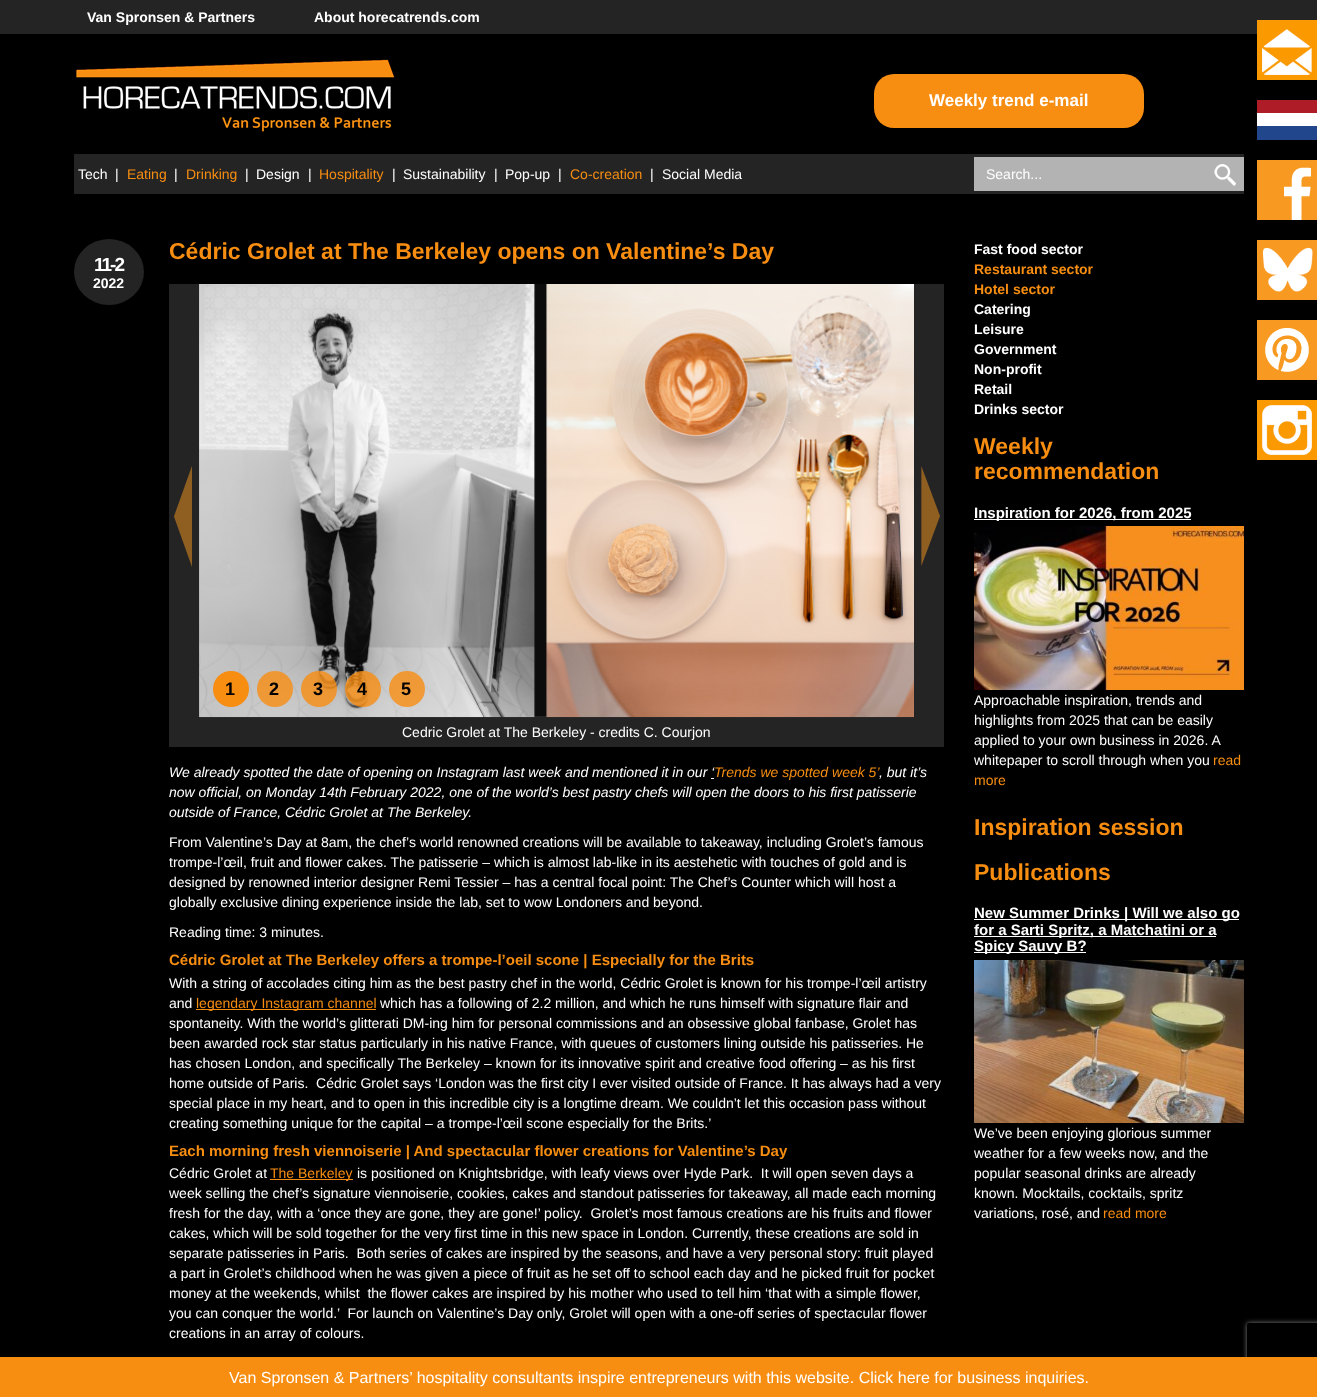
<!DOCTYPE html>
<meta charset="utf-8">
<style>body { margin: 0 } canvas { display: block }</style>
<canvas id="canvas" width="1317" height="1397"></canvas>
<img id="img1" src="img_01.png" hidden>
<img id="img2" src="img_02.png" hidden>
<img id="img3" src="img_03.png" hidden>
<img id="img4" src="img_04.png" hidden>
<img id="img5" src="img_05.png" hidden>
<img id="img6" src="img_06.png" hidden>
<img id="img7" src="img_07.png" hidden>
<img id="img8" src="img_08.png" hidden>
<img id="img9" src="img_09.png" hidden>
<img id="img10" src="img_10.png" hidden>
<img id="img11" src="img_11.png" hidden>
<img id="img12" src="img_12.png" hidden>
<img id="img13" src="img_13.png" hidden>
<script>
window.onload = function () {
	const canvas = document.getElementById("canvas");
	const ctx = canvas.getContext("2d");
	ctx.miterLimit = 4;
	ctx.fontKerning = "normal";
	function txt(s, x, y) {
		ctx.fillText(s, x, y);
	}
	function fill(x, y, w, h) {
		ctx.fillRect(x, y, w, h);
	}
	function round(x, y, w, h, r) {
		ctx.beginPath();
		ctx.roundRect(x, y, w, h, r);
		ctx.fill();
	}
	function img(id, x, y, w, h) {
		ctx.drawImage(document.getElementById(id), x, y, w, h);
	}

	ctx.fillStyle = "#000000";
	fill(0, 0, 1317, 1397);
	ctx.fillStyle = "#242424";
	fill(0, 0, 1317, 34);
	img("img1", 76, 59, 319, 73);
	ctx.fillStyle = "#F78D11";
	round(874, 74, 270, 54, 20);
	ctx.fillStyle = "#242424";
	fill(74, 154, 1170, 40);
	ctx.fillStyle = "#B3B3B3";
	fill(974, 157, 270, 34);
	img("img2", 1214, 164, 22, 22);
	img("img3", 1257, 20, 60, 60);
	img("img4", 1257, 100, 60, 40);
	img("img5", 1257, 160, 60, 60);
	img("img6", 1257, 240, 60, 60);
	img("img7", 1257, 320, 60, 60);
	img("img8", 1257, 400, 60, 60);
	ctx.fillStyle = "#242424";
	ctx.beginPath();
	ctx.ellipse(109, 272, 35, 33, 0, 0, Math.PI * 2);
	ctx.fill();
	fill(169, 284, 775, 463);
	img("img9", 174, 466, 18, 101);
	img("img10", 921, 466, 19, 100);
	img("img11", 199, 284, 715, 434);
	ctx.fillStyle = "#F78D11";
	ctx.beginPath();
	ctx.arc(231, 689, 18, 0, Math.PI * 2);
	ctx.fill();
	ctx.fillStyle = "rgba(247, 141, 17, 0.8)";
	ctx.beginPath();
	ctx.arc(275, 689, 18, 0, Math.PI * 2);
	ctx.fill();
	ctx.beginPath();
	ctx.arc(319, 689, 18, 0, Math.PI * 2);
	ctx.fill();
	ctx.beginPath();
	ctx.arc(363, 689, 18, 0, Math.PI * 2);
	ctx.fill();
	ctx.beginPath();
	ctx.arc(407, 689, 18, 0, Math.PI * 2);
	ctx.fill();
	ctx.fillStyle = "#FFFFFF";
	fill(711, 778, 3, 1);
	ctx.fillStyle = "#F78D11";
	fill(196, 1009, 180, 1);
	fill(270, 1179, 83, 1);
	ctx.fillStyle = "#FFFFFF";
	fill(974, 519, 217, 1);
	img("img12", 974, 526, 270, 164);
	fill(974, 919, 265, 1);
	fill(974, 936, 242, 1);
	fill(974, 952, 112, 1);
	img("img13", 974, 960, 270, 163);
	ctx.save();
	ctx.beginPath();
	ctx.moveTo(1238, 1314);
	ctx.lineTo(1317, 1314);
	ctx.lineTo(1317, 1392);
	ctx.lineTo(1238, 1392);
	ctx.closePath();
	ctx.moveTo(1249, 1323);
	ctx.lineTo(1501, 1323);
	ctx.bezierCurveTo(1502, 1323, 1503, 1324, 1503, 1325);
	ctx.lineTo(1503, 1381);
	ctx.bezierCurveTo(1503, 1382, 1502, 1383, 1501, 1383);
	ctx.lineTo(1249, 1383);
	ctx.bezierCurveTo(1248, 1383, 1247, 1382, 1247, 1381);
	ctx.lineTo(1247, 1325);
	ctx.bezierCurveTo(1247, 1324, 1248, 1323, 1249, 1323);
	ctx.closePath();
	ctx.clip("evenodd");
	ctx.fillStyle = "#808080";
	ctx.filter = "blur(2.5px)";
	ctx.beginPath();
	ctx.roundRect(1247, 1323, 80, 60, 2);
	ctx.fill();
	ctx.filter = "none";
	ctx.restore();
	ctx.fillStyle = "#F78D11";
	fill(0, 1357, 1317, 40);
	ctx.font = "bold 14px Liberation Sans";
	ctx.fillStyle = "#FFFFFF";
	txt("Van Spronsen & Partners", 87, 22);
	txt("About horecatrends.com", 314, 22);
	ctx.font = "bold 17px Liberation Sans";
	txt("Weekly trend e-mail", 929, 106);
	ctx.font = "14px Liberation Sans";
	txt("Tech", 78, 179);
	txt("|", 115, 179);
	ctx.fillStyle = "#F78D11";
	txt("Eating", 127, 179);
	ctx.fillStyle = "#FFFFFF";
	txt("|", 174, 179);
	ctx.fillStyle = "#F78D11";
	txt("Drinking", 186, 179);
	ctx.fillStyle = "#FFFFFF";
	txt("|", 245, 179);
	txt("Design", 256, 179);
	txt("|", 308, 179);
	ctx.fillStyle = "#F78D11";
	txt("Hospitality", 319, 179);
	ctx.fillStyle = "#FFFFFF";
	txt("|", 392, 179);
	txt("Sustainability", 403, 179);
	txt("|", 494, 179);
	txt("Pop-up", 505, 179);
	txt("|", 558, 179);
	ctx.fillStyle = "#F78D11";
	txt("Co-creation", 570, 179);
	ctx.fillStyle = "#FFFFFF";
	txt("|", 650, 179);
	txt("Social Media", 662, 179);
	txt("Search...", 986, 179);
	ctx.letterSpacing = "-2px";
	ctx.font = "bold 19px Liberation Sans";
	txt("11-2", 94, 271);
	ctx.letterSpacing = "0px";
	ctx.font = "bold 14px Liberation Sans";
	txt("2022", 93, 288);
	ctx.font = "bold 23px Liberation Sans";
	ctx.fillStyle = "#F78D11";
	txt("Cédric Grolet at The Berkeley opens on Valentine’s Day", 169, 259);
	ctx.font = "bold 18px Liberation Sans";
	ctx.fillStyle = "#000000";
	txt("1", 225, 695);
	txt("2", 269, 695);
	txt("3", 313, 695);
	txt("4", 357, 695);
	txt("5", 401, 695);
	ctx.font = "14px Liberation Sans";
	ctx.fillStyle = "#FFFFFF";
	txt("Cedric Grolet at The Berkeley - credits C. Courjon", 402, 737);
	ctx.font = "italic 14px Liberation Sans";
	txt("We already spotted the date of opening on Instagram last week and mentioned it in our ‘", 169, 777);
	ctx.fillStyle = "#F78D11";
	txt("Trends we spotted week 5’", 714, 777);
	ctx.fillStyle = "#FFFFFF";
	txt(", but it’s", 879, 777);
	txt("now official, on Monday 14th February 2022, one of the world’s best pastry chefs will open the doors to his first patisserie", 169, 797);
	txt("outside of France, Cédric Grolet at The Berkeley.", 169, 817);
	ctx.font = "14px Liberation Sans";
	txt("From Valentine’s Day at 8am, the chef’s world renowned creations will be available to takeaway, including Grolet’s famous", 169, 847);
	txt("trompe-l’œil, fruit and flower cakes. The patisserie – which is almost lab-like in its aestehetic with touches of gold and is", 169, 867);
	txt("designed by renowned interior designer Remi Tessier – has a central focal point: The Chef’s Counter which will host a", 169, 887);
	txt("globally exclusive dining experience inside the lab, set to wow Londoners and beyond.", 169, 907);
	txt("Reading time: 3 minutes.", 169, 937);
	ctx.font = "bold 15px Liberation Sans";
	ctx.fillStyle = "#F78D11";
	txt("Cédric Grolet at The Berkeley offers a trompe-l’oeil scone | Especially for the Brits", 169, 965);
	ctx.font = "14px Liberation Sans";
	ctx.fillStyle = "#FFFFFF";
	txt("With a string of accolades citing him as the best pastry chef in the world, Cédric Grolet is known for his trompe-l’œil artistry", 169, 988);
	txt("and", 169, 1008);
	ctx.fillStyle = "#F78D11";
	txt("legendary Instagram channel", 196, 1008);
	ctx.fillStyle = "#FFFFFF";
	txt("which has a following of 2.2 million, and which he runs himself with signature flair and", 380, 1008);
	txt("spontaneity. With the world’s glitterati DM-ing him for personal commissions and an obsessive global fanbase, Grolet has", 169, 1028);
	txt("been awarded rock star status particularly in his native France, with queues of customers lining outside his patisseries. He", 169, 1048);
	txt("has chosen London, and specifically The Berkeley – known for its innovative spirit and creative food offering – as his first", 169, 1068);
	txt("home outside of Paris.  Cédric Grolet says ‘London was the first city I ever visited outside of France. It has always had a very", 169, 1088);
	txt("special place in my heart, and to open in this incredible city is a longtime dream. We couldn’t let this occasion pass without", 169, 1108);
	txt("creating something unique for the capital – a trompe-l’œil scone especially for the Brits.’", 169, 1128);
	ctx.font = "bold 15px Liberation Sans";
	ctx.fillStyle = "#F78D11";
	txt("Each morning fresh viennoiserie | And spectacular flower creations for Valentine’s Day", 169, 1156);
	ctx.font = "14px Liberation Sans";
	ctx.fillStyle = "#FFFFFF";
	txt("Cédric Grolet at", 169, 1178);
	ctx.fillStyle = "#F78D11";
	txt("The Berkeley", 270, 1178);
	ctx.fillStyle = "#FFFFFF";
	txt("is positioned on Knightsbridge, with leafy views over Hyde Park.  It will open seven days a", 357, 1178);
	txt("week selling the chef’s signature viennoiserie, cookies, cakes and standout patisseries for takeaway, all made each morning", 169, 1198);
	txt("fresh for the day, with a ‘once they are gone, they are gone!’ policy.  Grolet’s most famous creations are his fruits and flower", 169, 1218);
	txt("cakes, which will be sold together for the very first time in this new space in London. Currently, these creations are sold in", 169, 1238);
	txt("separate patisseries in Paris.  Both series of cakes are inspired by the seasons, and have a very personal story: fruit played", 169, 1258);
	txt("a part in Grolet’s childhood when he was given a piece of fruit as he set off to school each day and he picked fruit for pocket", 169, 1278);
	txt("money at the weekends, whilst  the flower cakes are inspired by his mother who used to tell him ‘that with a simple flower,", 169, 1298);
	txt("you can conquer the world.’  For launch on Valentine’s Day only, Grolet will open with a one-off series of spectacular flower", 169, 1318);
	txt("creations in an array of colours.", 169, 1338);
	ctx.font = "bold 14px Liberation Sans";
	txt("Fast food sector", 974, 254);
	ctx.fillStyle = "#F78D11";
	txt("Restaurant sector", 974, 274);
	txt("Hotel sector", 974, 294);
	ctx.fillStyle = "#FFFFFF";
	txt("Catering", 974, 314);
	txt("Leisure", 974, 334);
	txt("Government", 974, 354);
	txt("Non-profit", 974, 374);
	txt("Retail", 974, 394);
	txt("Drinks sector", 974, 414);
	ctx.font = "bold 23px Liberation Sans";
	ctx.fillStyle = "#F78D11";
	txt("Weekly", 974, 454);
	txt("recommendation", 974, 479);
	ctx.font = "bold 15px Liberation Sans";
	ctx.fillStyle = "#FFFFFF";
	txt("Inspiration for 2026, from 2025", 974, 518);
	ctx.font = "14px Liberation Sans";
	txt("Approachable inspiration, trends and", 974, 705);
	txt("highlights from 2025 that can be easily", 974, 725);
	txt("applied to your own business in 2026. A", 974, 745);
	txt("whitepaper to scroll through when you", 974, 765);
	ctx.fillStyle = "#F78D11";
	txt("read", 1213, 765);
	txt("more", 974, 785);
	ctx.font = "bold 23px Liberation Sans";
	txt("Inspiration session", 974, 835);
	txt("Publications", 974, 880);
	ctx.font = "bold 15px Liberation Sans";
	ctx.fillStyle = "#FFFFFF";
	txt("New Summer Drinks | Will we also go", 974, 918);
	txt("for a Sarti Spritz, a Matchatini or a", 974, 935);
	txt("Spicy Sauvy B?", 974, 951);
	ctx.font = "14px Liberation Sans";
	txt("We’ve been enjoying glorious summer", 974, 1138);
	txt("weather for a few weeks now, and the", 974, 1158);
	txt("popular seasonal drinks are already", 974, 1178);
	txt("known. Mocktails, cocktails, spritz", 974, 1198);
	txt("variations, rosé, and", 974, 1218);
	ctx.fillStyle = "#F78D11";
	txt("read more", 1103, 1218);
	ctx.font = "16px Liberation Sans";
	ctx.fillStyle = "#FFFFFF";
	txt("Van Spronsen & Partners’ hospitality consultants inspire entrepreneurs with this website. Click here for business inquiries.", 229, 1383);
};
</script>
